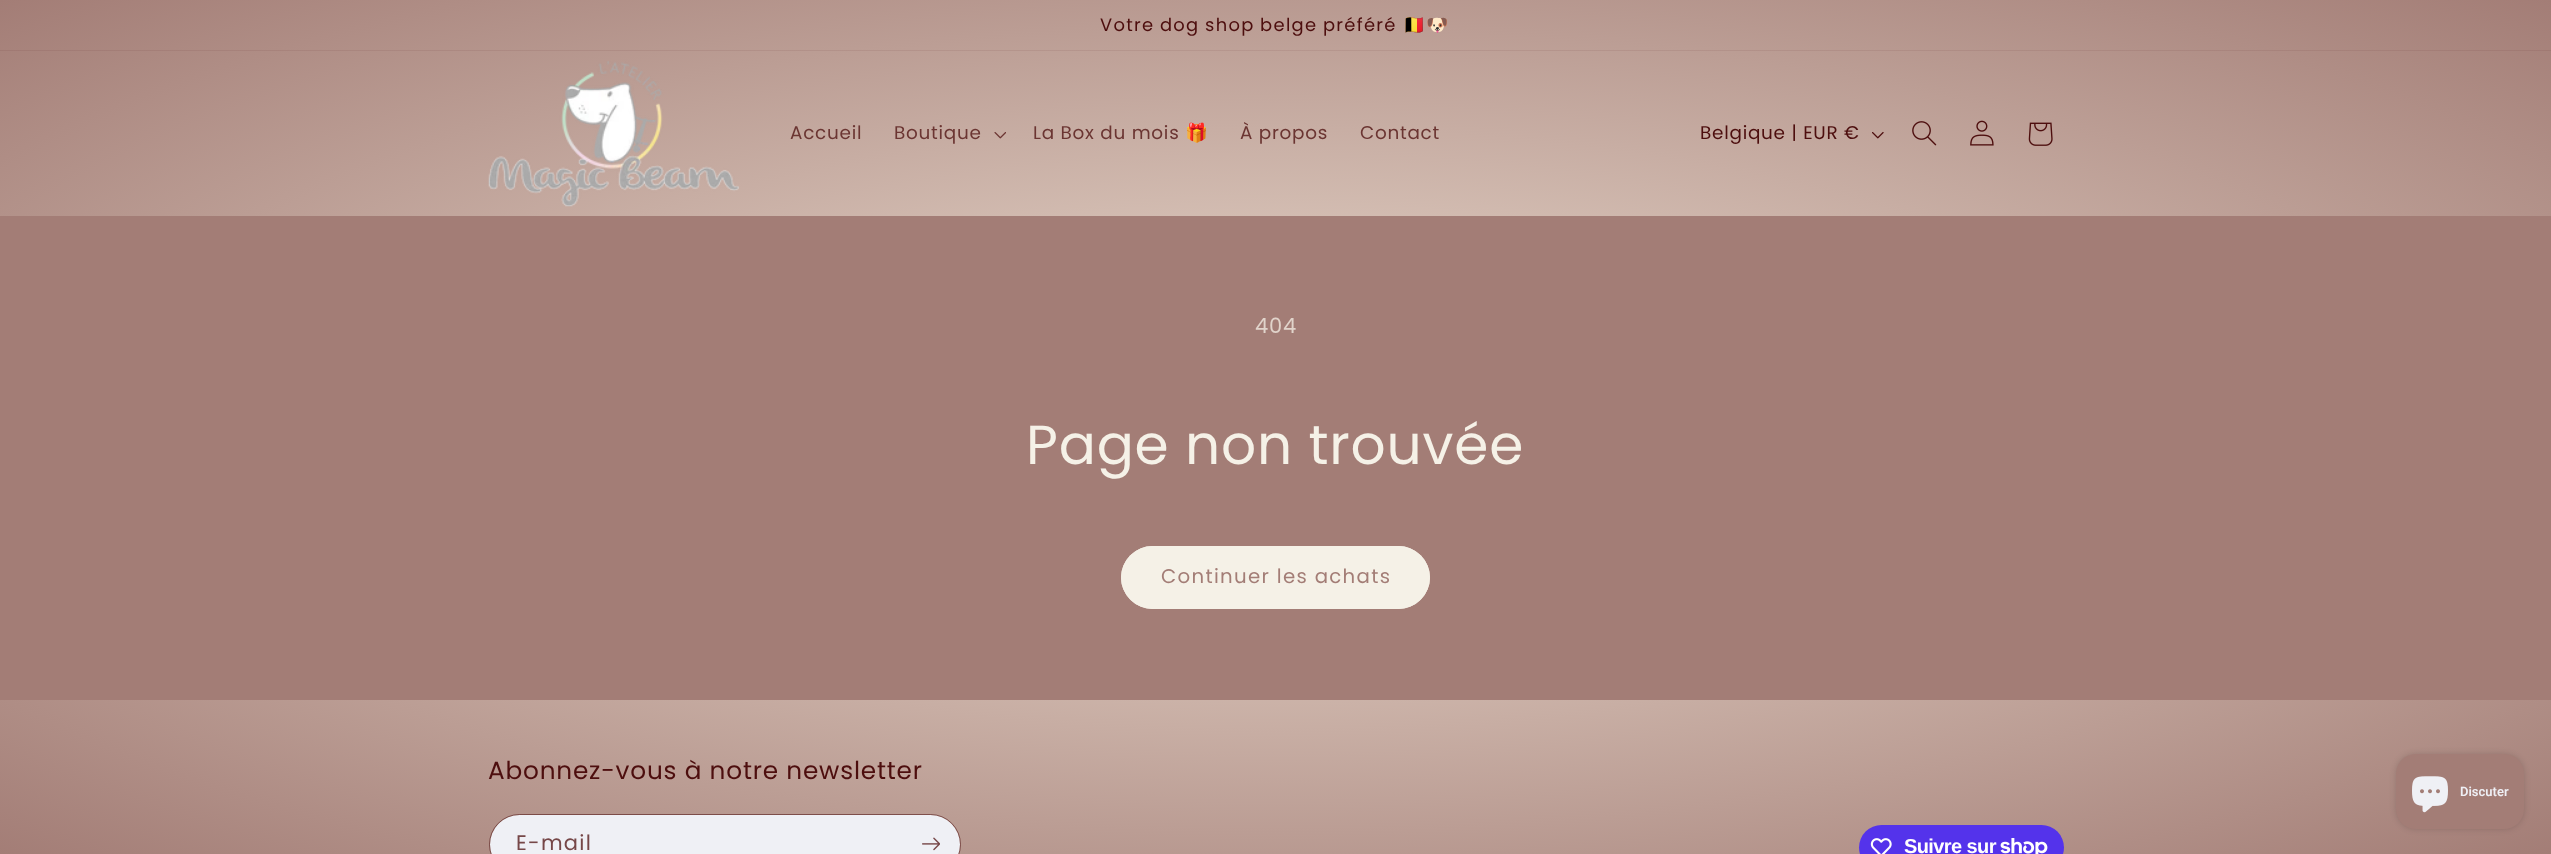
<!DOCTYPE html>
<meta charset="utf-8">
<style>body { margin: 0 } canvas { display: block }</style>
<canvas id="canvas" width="2551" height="854"></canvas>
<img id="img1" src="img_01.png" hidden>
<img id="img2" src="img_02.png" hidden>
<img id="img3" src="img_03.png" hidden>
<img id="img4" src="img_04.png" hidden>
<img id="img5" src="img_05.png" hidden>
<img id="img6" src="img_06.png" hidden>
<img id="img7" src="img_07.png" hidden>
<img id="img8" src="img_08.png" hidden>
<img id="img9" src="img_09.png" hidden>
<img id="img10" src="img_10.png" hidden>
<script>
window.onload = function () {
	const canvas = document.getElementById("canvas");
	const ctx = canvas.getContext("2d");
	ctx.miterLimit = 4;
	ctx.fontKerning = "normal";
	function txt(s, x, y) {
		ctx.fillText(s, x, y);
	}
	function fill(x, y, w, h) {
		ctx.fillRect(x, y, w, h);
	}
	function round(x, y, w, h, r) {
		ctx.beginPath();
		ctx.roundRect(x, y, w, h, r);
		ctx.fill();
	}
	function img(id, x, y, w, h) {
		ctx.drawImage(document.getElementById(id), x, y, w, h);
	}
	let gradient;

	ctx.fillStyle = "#A37D76";
	fill(0, 0, 2551, 854);
	gradient = ctx.createRadialGradient(1276, 1276.22, 0, 1276, 1276.22, 1804);
	gradient.addColorStop(0, "#ECDED1");
	gradient.addColorStop(1, "#A37D76");
	ctx.fillStyle = gradient;
	ctx.beginPath();
	ctx.rect(0, 0, 2551, 50);
	ctx.save();
	ctx.clip();
	ctx.scale(1, 605 / 1804);
	ctx.fillRect(0, 0, 2551, 2547);
	ctx.restore();
	gradient = ctx.createRadialGradient(1276, 1276.22, 0, 1276, 1276.22, 1804);
	gradient.addColorStop(0, "#DFCDC1");
	gradient.addColorStop(1, "#9C746E");
	ctx.fillStyle = gradient;
	ctx.beginPath();
	ctx.rect(0, 50, 2551, 1);
	ctx.save();
	ctx.clip();
	ctx.scale(1, 605 / 1804);
	ctx.fillRect(0, 0, 2551, 2547);
	ctx.restore();
	gradient = ctx.createRadialGradient(1276, 1276.22, 0, 1276, 1276.22, 1804);
	gradient.addColorStop(0, "#ECDED1");
	gradient.addColorStop(1, "#A37D76");
	ctx.fillStyle = gradient;
	ctx.beginPath();
	ctx.rect(0, 51, 2551, 165);
	ctx.save();
	ctx.clip();
	ctx.scale(1, 605 / 1804);
	ctx.fillRect(0, 0, 2551, 2547);
	ctx.restore();
	img("img1", 488, 61, 251, 146);
	img("img2", 994, 132, 12, 7);
	img("img3", 1872, 132, 12, 7);
	img("img4", 1912, 121, 25, 25);
	img("img5", 1970, 120, 24, 26);
	img("img6", 2028, 122, 25, 24);
	ctx.fillStyle = "#F5F1E7";
	round(1121, 546, 309, 63, 31.5);
	ctx.beginPath();
	ctx.roundRect(1121.5, 546.5, 308, 62, 31);
	ctx.strokeStyle = "#F5F1E7";
	ctx.stroke();
	gradient = ctx.createRadialGradient(1276, 1276.22, 0, 1276, 1276.22, 1804);
	gradient.addColorStop(0, "#ECDED1");
	gradient.addColorStop(1, "#A37D76");
	ctx.fillStyle = gradient;
	ctx.beginPath();
	ctx.rect(0, 700, 2551, 154);
	ctx.save();
	ctx.clip();
	ctx.scale(1, 605 / 1804);
	ctx.fillRect(0, 0, 2551, 2547);
	ctx.restore();
	ctx.fillStyle = "#EFF0F5";
	round(490, 815, 470, 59, 29.5);
	ctx.beginPath();
	ctx.roundRect(489.5, 814.5, 471, 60, 30);
	ctx.strokeStyle = "rgba(77, 14, 14, 0.55)";
	ctx.stroke();
	img("img7", 922, 837, 18, 14);
	ctx.fillStyle = "#5433EB";
	round(1859, 825, 205, 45, 22.5);
	img("img8", 1870, 838, 22, 16);
	img("img9", 2000, 838, 48, 16);
	ctx.fillStyle = "rgba(0, 0, 0, 0.15)";
	ctx.filter = "blur(3px)";
	ctx.beginPath();
	ctx.roundRect(2396, 754, 128, 75, 20);
	ctx.fill();
	ctx.filter = "none";
	ctx.fillStyle = "#A37D76";
	round(2396, 754, 128, 75, 20);
	img("img10", 2412, 776, 36, 37);
	ctx.letterSpacing = "1.3px";
	ctx.wordSpacing = "-0.5px";
	ctx.font = "17.9px Poppins";
	ctx.fillStyle = "#4D0E0E";
	txt("Votre dog shop belge préféré", 1100, 31);
	ctx.wordSpacing = "0px";
	ctx.font = "17.9px Noto Color Emoji";
	txt("🇧🇪🐶", 1403, 31);
	ctx.letterSpacing = "0.75px";
	ctx.font = "18.4px Poppins";
	ctx.fillStyle = "#6B3532";
	txt("Accueil", 790, 139);
	txt("Boutique", 894, 139);
	txt("La Box du mois", 1033, 139);
	ctx.font = "18.4px Noto Color Emoji";
	txt("🎁", 1185, 139);
	ctx.font = "18.4px Poppins";
	txt("À propos", 1240, 139);
	txt("Contact", 1360, 139);
	ctx.fillStyle = "#4D0E0E";
	txt("Belgique | EUR €", 1700, 139);
	ctx.font = "21px Poppins";
	ctx.fillStyle = "#E1D4CB";
	txt("404", 1255, 333);
	ctx.letterSpacing = "0.8px";
	ctx.font = "55px Poppins";
	ctx.fillStyle = "#F5F1E7";
	txt("Page non trouvée", 1026, 464);
	ctx.letterSpacing = "1.3px";
	ctx.font = "19.75px Poppins";
	ctx.fillStyle = "#A37D76";
	txt("Continuer les achats", 1161, 583);
	ctx.letterSpacing = "0.8px";
	ctx.font = "24.75px Poppins";
	ctx.fillStyle = "#4D0E0E";
	txt("Abonnez-vous à notre newsletter", 488, 779);
	ctx.letterSpacing = "1.3px";
	ctx.font = "21px Poppins";
	ctx.fillStyle = "#764748";
	txt("E-mail", 516, 850);
	ctx.letterSpacing = "-0.6px";
	ctx.font = "bold 20px Liberation Sans";
	ctx.fillStyle = "#FFFFFF";
	txt("Suivre sur", 1904, 853);
	ctx.letterSpacing = "0px";
	ctx.font = "600 13px Roboto";
	ctx.fillStyle = "#EFF0F5";
	txt("Discuter", 2460, 796);
};
</script>
